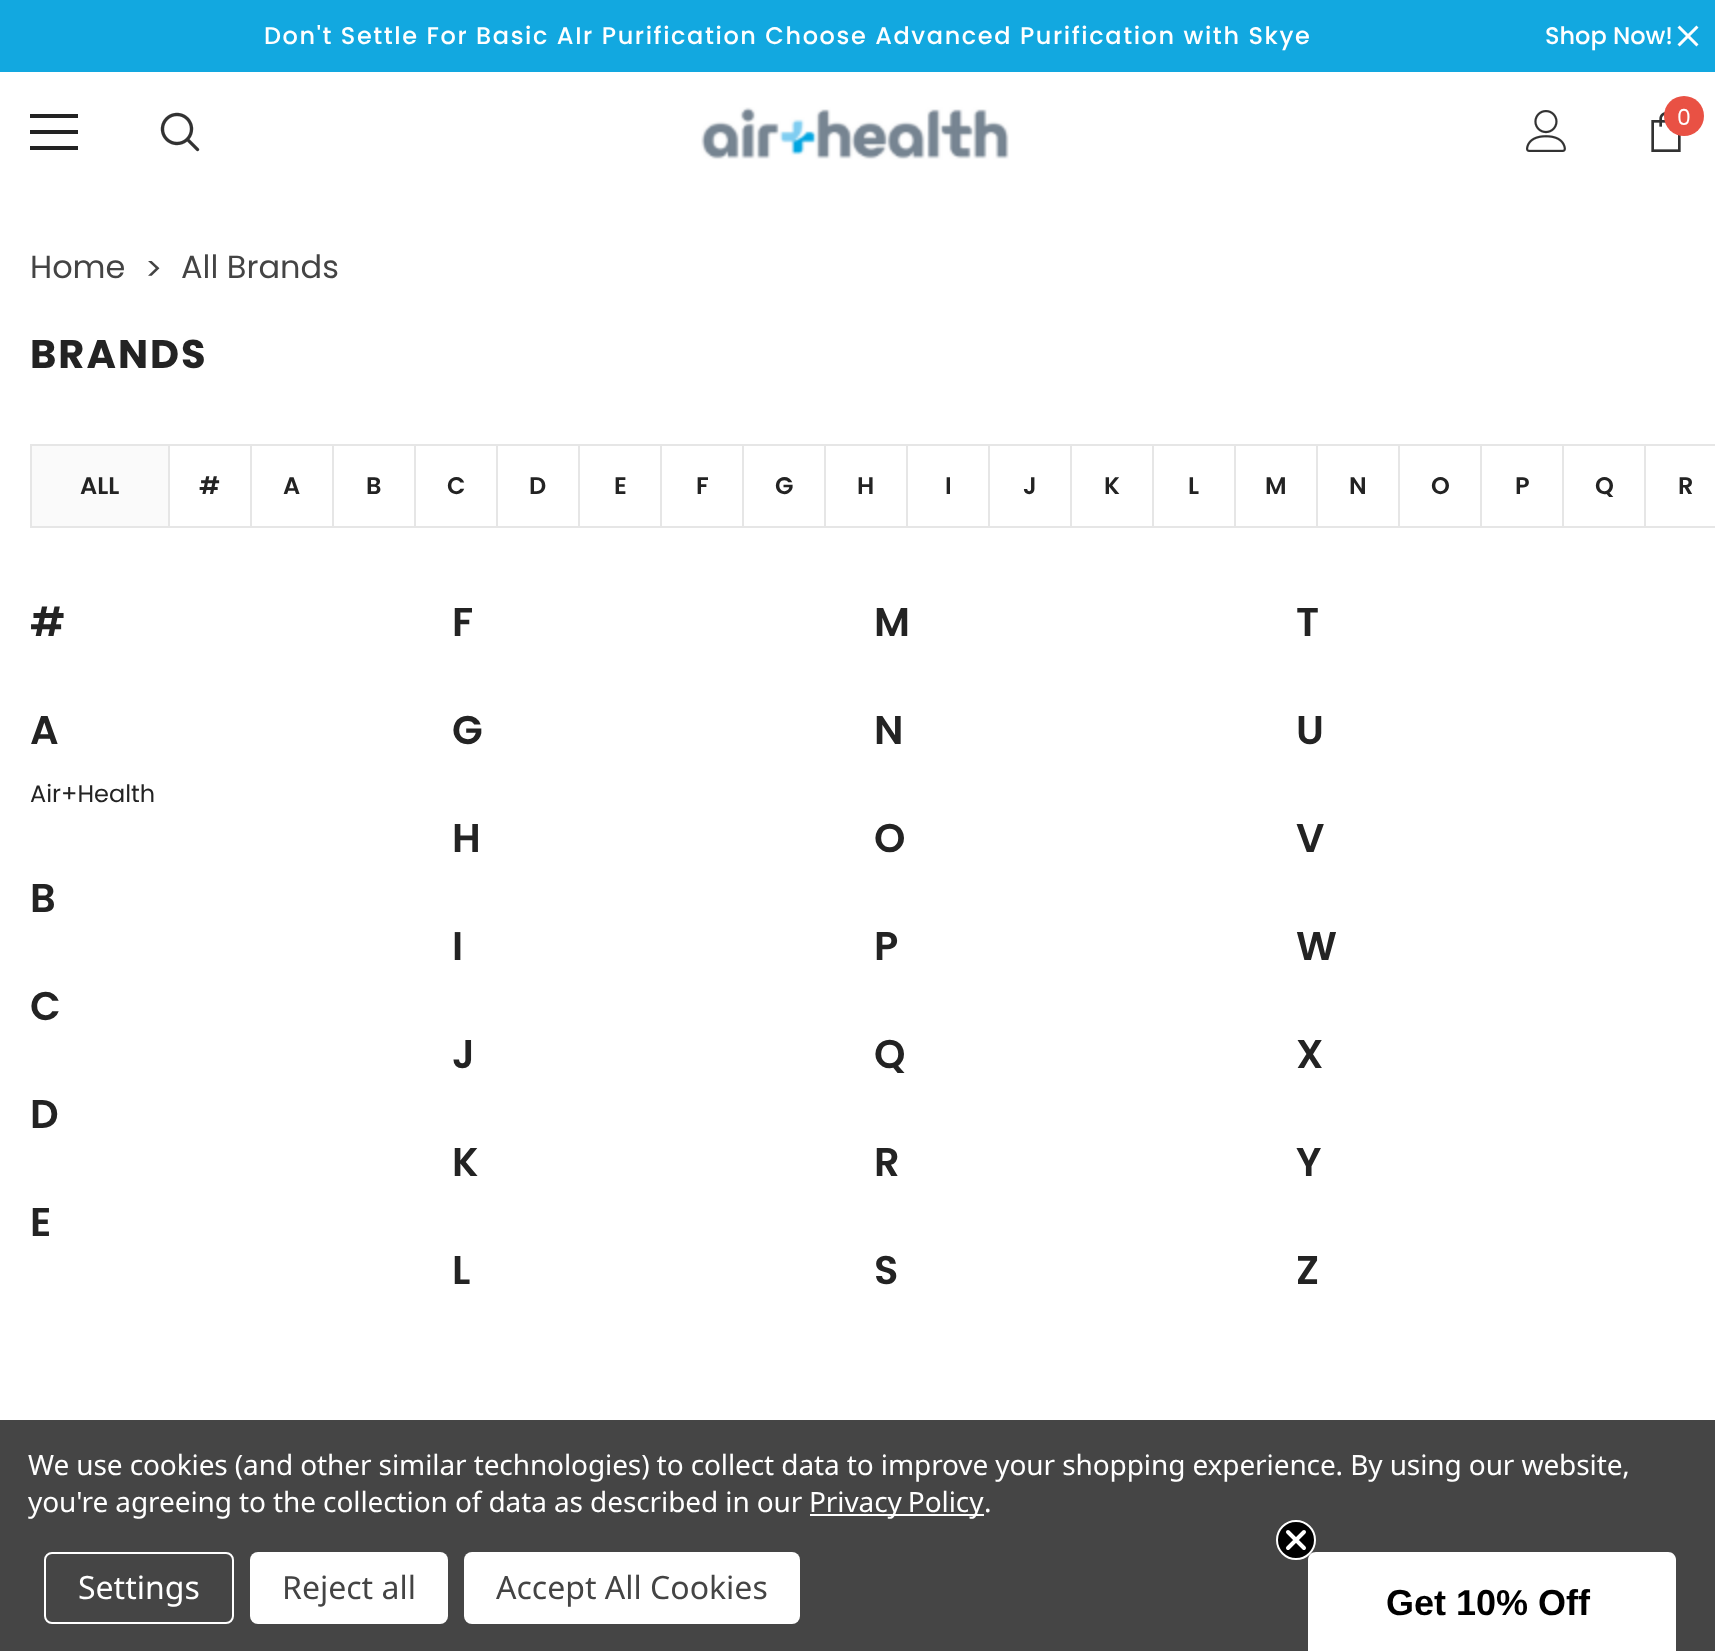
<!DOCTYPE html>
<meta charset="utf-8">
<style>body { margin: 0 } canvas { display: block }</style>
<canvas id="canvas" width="1715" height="1651"></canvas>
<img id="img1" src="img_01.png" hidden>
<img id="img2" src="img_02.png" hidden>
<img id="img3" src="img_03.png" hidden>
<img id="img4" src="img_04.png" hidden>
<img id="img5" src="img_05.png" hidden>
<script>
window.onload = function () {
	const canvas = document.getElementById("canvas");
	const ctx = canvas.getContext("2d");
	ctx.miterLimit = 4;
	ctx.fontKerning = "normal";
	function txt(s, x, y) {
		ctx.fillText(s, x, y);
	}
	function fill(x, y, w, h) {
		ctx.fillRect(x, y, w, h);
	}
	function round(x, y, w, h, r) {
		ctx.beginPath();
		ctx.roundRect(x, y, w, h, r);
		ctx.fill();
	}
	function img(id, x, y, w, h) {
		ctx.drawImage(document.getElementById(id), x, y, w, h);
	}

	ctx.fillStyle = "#FFFFFF";
	fill(0, 0, 1715, 1651);
	ctx.fillStyle = "#12A8E0";
	fill(0, 0, 1715, 72);
	img("img1", 1677, 25, 22, 22);
	ctx.fillStyle = "#232323";
	fill(30, 130, 48, 4);
	fill(30, 114, 48, 4);
	fill(30, 146, 48, 4);
	img("img2", 160, 112, 40, 40);
	img("img3", 701, 107, 308, 53);
	img("img4", 1526, 110, 40, 42);
	img("img5", 1651, 112, 30, 40);
	ctx.fillStyle = "#E95144";
	ctx.beginPath();
	ctx.arc(1684, 116, 20, 0, Math.PI * 2);
	ctx.fill();
	ctx.fillStyle = "#FAFAFA";
	ctx.beginPath();
	ctx.rect(31, 445, 138, 82);
	ctx.fill();
	ctx.strokeStyle = "#E6E6E6";
	ctx.lineWidth = 2;
	ctx.stroke();
	ctx.fillStyle = "#E6E6E6";
	fill(170, 444, 1545, 2);
	fill(250, 444, 2, 84);
	fill(170, 526, 82, 2);
	fill(332, 444, 2, 84);
	fill(252, 526, 82, 2);
	fill(414, 444, 2, 84);
	fill(334, 526, 82, 2);
	fill(496, 444, 2, 84);
	fill(416, 526, 82, 2);
	fill(578, 444, 2, 84);
	fill(498, 526, 82, 2);
	fill(660, 444, 2, 84);
	fill(580, 526, 82, 2);
	fill(742, 444, 2, 84);
	fill(662, 526, 82, 2);
	fill(824, 444, 2, 84);
	fill(744, 526, 82, 2);
	fill(906, 444, 2, 84);
	fill(826, 526, 82, 2);
	fill(988, 444, 2, 84);
	fill(908, 526, 82, 2);
	fill(1070, 444, 2, 84);
	fill(990, 526, 82, 2);
	fill(1152, 444, 2, 84);
	fill(1072, 526, 82, 2);
	fill(1234, 444, 2, 84);
	fill(1154, 526, 82, 2);
	fill(1316, 444, 2, 84);
	fill(1236, 526, 82, 2);
	fill(1398, 444, 2, 84);
	fill(1318, 526, 82, 2);
	fill(1480, 444, 2, 84);
	fill(1400, 526, 82, 2);
	fill(1562, 444, 2, 84);
	fill(1482, 526, 82, 2);
	fill(1644, 444, 2, 84);
	fill(1564, 526, 151, 2);
	ctx.fillStyle = "#454545";
	fill(0, 1420, 1715, 231);
	ctx.fillStyle = "#FFFFFF";
	fill(810, 1514, 174, 2);
	ctx.beginPath();
	ctx.roundRect(45, 1553, 188, 70, 7);
	ctx.strokeStyle = "#FFFFFF";
	ctx.stroke();
	round(250, 1552, 198, 72, 8);
	round(464, 1552, 336, 72, 8);
	ctx.beginPath();
	ctx.moveTo(1316, 1552);
	ctx.lineTo(1668, 1552);
	ctx.bezierCurveTo(1672.5, 1552, 1676, 1555.5, 1676, 1560);
	ctx.lineTo(1676, 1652);
	ctx.lineTo(1308, 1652);
	ctx.lineTo(1308, 1560);
	ctx.bezierCurveTo(1308, 1555.5, 1311.5, 1552, 1316, 1552);
	ctx.closePath();
	ctx.fill();
	ctx.fillStyle = "#000000";
	ctx.beginPath();
	ctx.arc(1296, 1540, 19, 0, Math.PI * 2);
	ctx.fill();
	ctx.stroke();
	ctx.beginPath();
	ctx.moveTo(1288, 1532);
	ctx.lineTo(1304, 1548);
	ctx.moveTo(1288, 1548);
	ctx.lineTo(1304, 1532);
	ctx.closePath();
	ctx.lineWidth = 4;
	ctx.lineCap = "round";
	ctx.lineJoin = "round";
	ctx.stroke();
	ctx.letterSpacing = "1.6px";
	ctx.font = "500 24px Poppins";
	ctx.fillStyle = "#FFFFFF";
	txt("Don't Settle For Basic AIr Purification Choose Advanced Purification with Skye", 264, 44);
	ctx.letterSpacing = "0px";
	txt("Shop Now!", 1545, 44);
	ctx.font = "22px Poppins";
	txt("0", 1677, 125);
	ctx.font = "32px Poppins";
	ctx.fillStyle = "#444444";
	txt("Home", 30, 278);
	txt(">", 145, 280);
	txt("All Brands", 181, 278);
	ctx.letterSpacing = "2px";
	ctx.font = "bold 40px Poppins";
	ctx.fillStyle = "#232323";
	txt("BRANDS", 30, 368);
	ctx.letterSpacing = "0px";
	ctx.font = "600 24px Poppins";
	txt("ALL", 80, 494);
	txt("#", 199, 494);
	txt("A", 283, 494);
	txt("B", 366, 494);
	txt("C", 447, 494);
	txt("D", 529, 494);
	txt("E", 614, 494);
	txt("F", 696, 494);
	txt("G", 775, 494);
	txt("H", 857, 494);
	txt("I", 945, 494);
	txt("J", 1023, 494);
	txt("K", 1104, 494);
	txt("L", 1188, 494);
	txt("M", 1265, 494);
	txt("N", 1349, 494);
	txt("O", 1431, 494);
	txt("P", 1515, 494);
	txt("Q", 1595, 494);
	txt("R", 1678, 494);
	ctx.font = "600 40px Poppins";
	txt("#", 30, 636);
	txt("F", 452, 636);
	txt("M", 874, 636);
	txt("T", 1296, 636);
	txt("A", 30, 744);
	ctx.font = "24px Poppins";
	txt("Air+Health", 30, 802);
	ctx.font = "600 40px Poppins";
	txt("G", 452, 744);
	txt("N", 874, 744);
	txt("U", 1296, 744);
	txt("H", 452, 852);
	txt("O", 874, 852);
	txt("V", 1296, 852);
	txt("B", 30, 912);
	txt("I", 452, 960);
	txt("P", 874, 960);
	txt("W", 1296, 960);
	txt("C", 30, 1020);
	txt("J", 452, 1068);
	txt("Q", 874, 1068);
	txt("X", 1296, 1068);
	txt("D", 30, 1128);
	txt("K", 452, 1176);
	txt("R", 874, 1176);
	txt("Y", 1296, 1176);
	txt("E", 30, 1236);
	txt("L", 452, 1284);
	txt("S", 874, 1284);
	txt("Z", 1296, 1284);
	ctx.letterSpacing = "-0.1px";
	ctx.font = "28px Noto Sans";
	ctx.fillStyle = "#FFFFFF";
	txt("We use cookies (and other similar technologies) to collect data to improve your shopping experience. By using our website,", 28, 1475);
	txt("you're agreeing to the collection of data as described in our", 28, 1512);
	ctx.wordSpacing = "-1px";
	txt("Privacy Policy", 809, 1512);
	ctx.wordSpacing = "0px";
	txt(".", 984, 1512);
	ctx.letterSpacing = "0px";
	ctx.font = "32px Noto Sans";
	txt("Settings", 78, 1599);
	ctx.fillStyle = "#444444";
	txt("Reject all", 282, 1599);
	txt("Accept All Cookies", 496, 1599);
	ctx.font = "bold 36px Liberation Sans";
	ctx.fillStyle = "#000000";
	txt("Get 10% Off", 1386, 1615);
};
</script>
